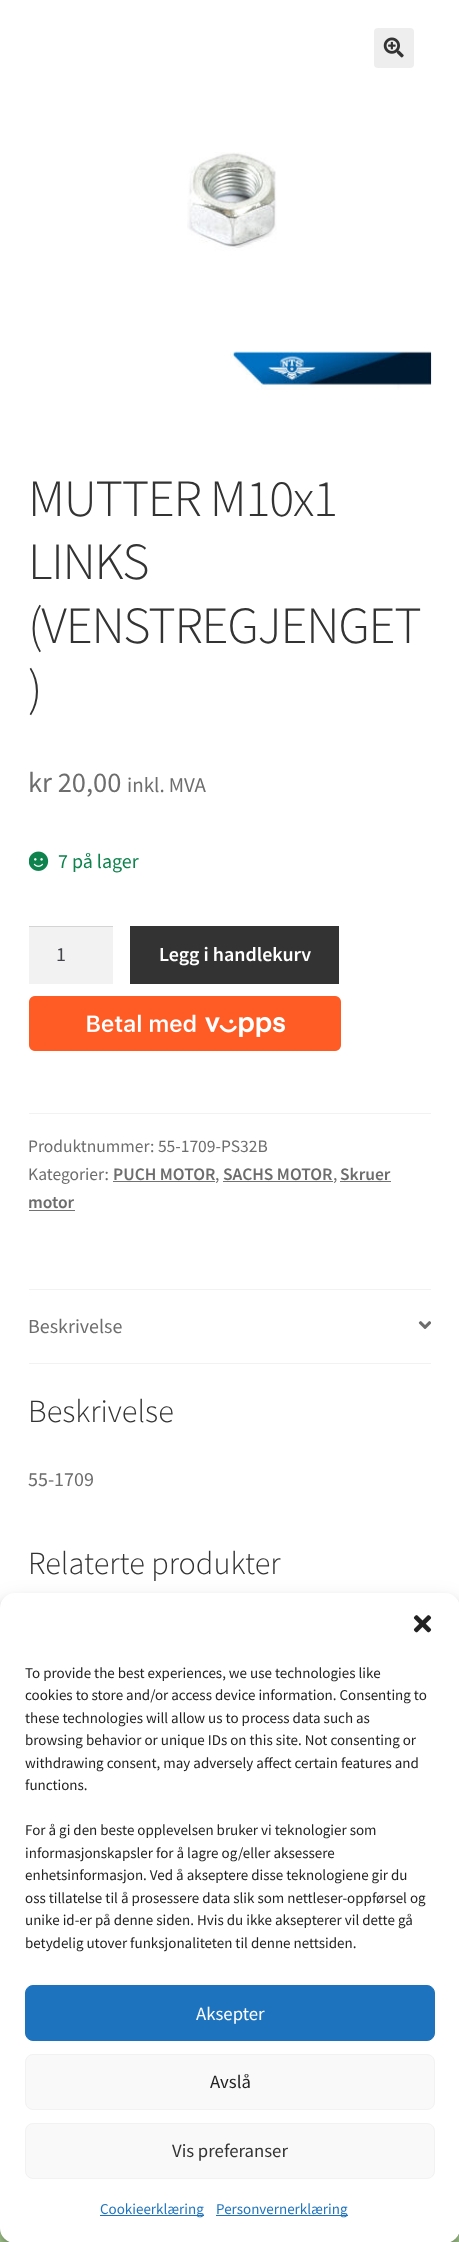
<!DOCTYPE html>
<meta charset="utf-8">
<style>body { margin: 0 } canvas { display: block }</style>
<canvas id="canvas" width="459" height="2242"></canvas>
<img id="img1" src="img_01.png" hidden>
<img id="img2" src="img_02.png" hidden>
<img id="img3" src="img_03.png" hidden>
<img id="img4" src="img_04.png" hidden>
<img id="img5" src="img_05.png" hidden>
<img id="img6" src="img_06.png" hidden>
<script>
window.onload = function () {
	const canvas = document.getElementById("canvas");
	const ctx = canvas.getContext("2d");
	ctx.miterLimit = 4;
	ctx.fontKerning = "normal";
	function txt(s, x, y) {
		ctx.fillText(s, x, y);
	}
	function fill(x, y, w, h) {
		ctx.fillRect(x, y, w, h);
	}
	function round(x, y, w, h, r) {
		ctx.beginPath();
		ctx.roundRect(x, y, w, h, r);
		ctx.fill();
	}
	function img(id, x, y, w, h) {
		ctx.drawImage(document.getElementById(id), x, y, w, h);
	}

	ctx.fillStyle = "#FFFFFF";
	fill(0, 0, 459, 2242);
	ctx.fillStyle = "#EEEEEE";
	round(374, 28, 40, 40, 4);
	img("img1", 383, 37, 21, 21);
	img("img2", 187, 152, 245, 238);
	img("img3", 29, 851, 20, 20);
	ctx.fillStyle = "#F2F2F2";
	fill(29, 927, 84, 57);
	ctx.fillStyle = "#D4D4D4";
	fill(29, 926, 84, 1);
	ctx.fillStyle = "#333333";
	fill(130, 926, 209, 58);
	img("img4", 29, 996, 312, 55);
	ctx.fillStyle = "#F2F2F2";
	fill(29, 1113, 402, 1);
	ctx.fillStyle = "#727272";
	fill(113, 1181, 102, 1);
	fill(223, 1181, 110, 1);
	fill(340, 1181, 51, 1);
	fill(29, 1210, 46, 1);
	ctx.fillStyle = "#F2F2F2";
	fill(29, 1289, 402, 1);
	fill(29, 1363, 402, 1);
	img("img5", 418, 1321, 13, 8);
	ctx.fillStyle = "#AFD698";
	fill(0, 2228, 10, 14);
	fill(450, 2233, 9, 9);
	ctx.fillStyle = "rgba(0, 0, 0, 0.23)";
	ctx.filter = "blur(4px)";
	ctx.beginPath();
	ctx.roundRect(0, 1600, 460, 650, 15);
	ctx.fill();
	ctx.filter = "none";
	ctx.fillStyle = "rgba(0, 0, 0, 0.19)";
	ctx.filter = "blur(12.5px)";
	ctx.beginPath();
	ctx.roundRect(0, 1605, 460, 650, 15);
	ctx.fill();
	ctx.filter = "none";
	ctx.fillStyle = "#FFFFFF";
	round(0, 1593, 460, 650, 15);
	img("img6", 413, 1615, 19, 18);
	ctx.fillStyle = "#1E73BE";
	ctx.beginPath();
	ctx.roundRect(25.5, 1985.5, 409, 55, 7.5);
	ctx.fill();
	ctx.strokeStyle = "#1E73BE";
	ctx.stroke();
	ctx.fillStyle = "#F9F9F9";
	ctx.beginPath();
	ctx.roundRect(25.5, 2054.5, 409, 55, 7.5);
	ctx.fill();
	ctx.strokeStyle = "#F2F2F2";
	ctx.stroke();
	ctx.beginPath();
	ctx.roundRect(25.5, 2123.5, 409, 55, 7.5);
	ctx.fill();
	ctx.stroke();
	ctx.fillStyle = "#1E73BE";
	fill(100, 2215, 104, 1);
	fill(216, 2215, 132, 1);
	ctx.letterSpacing = "-1.25px";
	ctx.font = "300 52.25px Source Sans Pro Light";
	ctx.fillStyle = "#333333";
	txt("MUTTER M10x1", 28, 516);
	txt("LINKS", 28, 579);
	txt("(VENSTREGJENGET", 28, 643);
	txt(")", 28, 706);
	ctx.letterSpacing = "0px";
	ctx.font = "28.5px Source Sans Pro";
	ctx.fillStyle = "#6D6D6D";
	txt("kr 20,00", 28, 792);
	ctx.font = "21px Source Sans Pro";
	txt("inkl. MVA", 127, 792);
	ctx.font = "20px Source Sans Pro";
	ctx.fillStyle = "#0F834D";
	txt("7 på lager", 58, 868);
	ctx.fillStyle = "#43454B";
	txt("1", 56, 961);
	ctx.font = "600 20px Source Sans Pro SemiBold";
	ctx.fillStyle = "#FFFFFF";
	txt("Legg i handlekurv", 159, 961);
	ctx.font = "17.5px Source Sans Pro";
	ctx.fillStyle = "#6D6D6D";
	txt("Produktnummer: 55-1709-PS32B", 28, 1152);
	txt("Kategorier:", 28, 1180);
	ctx.font = "600 17.5px Source Sans Pro SemiBold";
	txt("PUCH MOTOR", 113, 1180);
	ctx.font = "17.5px Source Sans Pro";
	txt(",", 215, 1180);
	ctx.font = "600 17.5px Source Sans Pro SemiBold";
	txt("SACHS MOTOR", 223, 1180);
	ctx.font = "17.5px Source Sans Pro";
	txt(",", 333, 1180);
	ctx.font = "600 17.5px Source Sans Pro SemiBold";
	txt("Skruer", 340, 1180);
	txt("motor", 28, 1208);
	ctx.font = "20px Source Sans Pro";
	txt("Beskrivelse", 28, 1333);
	ctx.font = "300 32.25px Source Sans Pro Light";
	ctx.fillStyle = "#333333";
	txt("Beskrivelse", 28, 1422);
	ctx.font = "20px Source Sans Pro";
	ctx.fillStyle = "#6D6D6D";
	txt("55-1709", 28, 1486);
	ctx.font = "300 32.25px Source Sans Pro Light";
	ctx.fillStyle = "#333333";
	txt("Relaterte produkter", 28, 1574);
	ctx.font = "15px Source Sans Pro";
	ctx.fillStyle = "#222222";
	txt("To provide the best experiences, we use technologies like", 25, 1678);
	txt("cookies to store and/or access device information. Consenting to", 25, 1700);
	txt("these technologies will allow us to process data such as", 25, 1723);
	txt("browsing behavior or unique IDs on this site. Not consenting or", 25, 1745);
	txt("withdrawing consent, may adversely affect certain features and", 25, 1768);
	txt("functions.", 25, 1790);
	txt("For å gi den beste opplevelsen bruker vi teknologier som", 25, 1835);
	txt("informasjonskapsler for å lagre og/eller aksessere", 25, 1858);
	txt("enhetsinformasjon. Ved å akseptere disse teknologiene gir du", 25, 1880);
	txt("oss tillatelse til å prosessere data slik som nettleser-oppførsel og", 25, 1903);
	txt("unike id-er på denne siden. Hvis du ikke aksepterer vil dette gå", 25, 1925);
	txt("betydelig utover funksjonaliteten til denne nettsiden.", 25, 1948);
	ctx.font = "18.75px Source Sans Pro";
	ctx.fillStyle = "#FFFFFF";
	txt("Aksepter", 196, 2020);
	ctx.fillStyle = "#222222";
	txt("Avslå", 210, 2088);
	ctx.fillStyle = "#333333";
	txt("Vis preferanser", 172, 2157);
	ctx.font = "15px Source Sans Pro";
	ctx.fillStyle = "#1E73BE";
	txt("Cookieerklæring", 100, 2214);
	txt("Personvernerklæring", 216, 2214);
};
</script>
